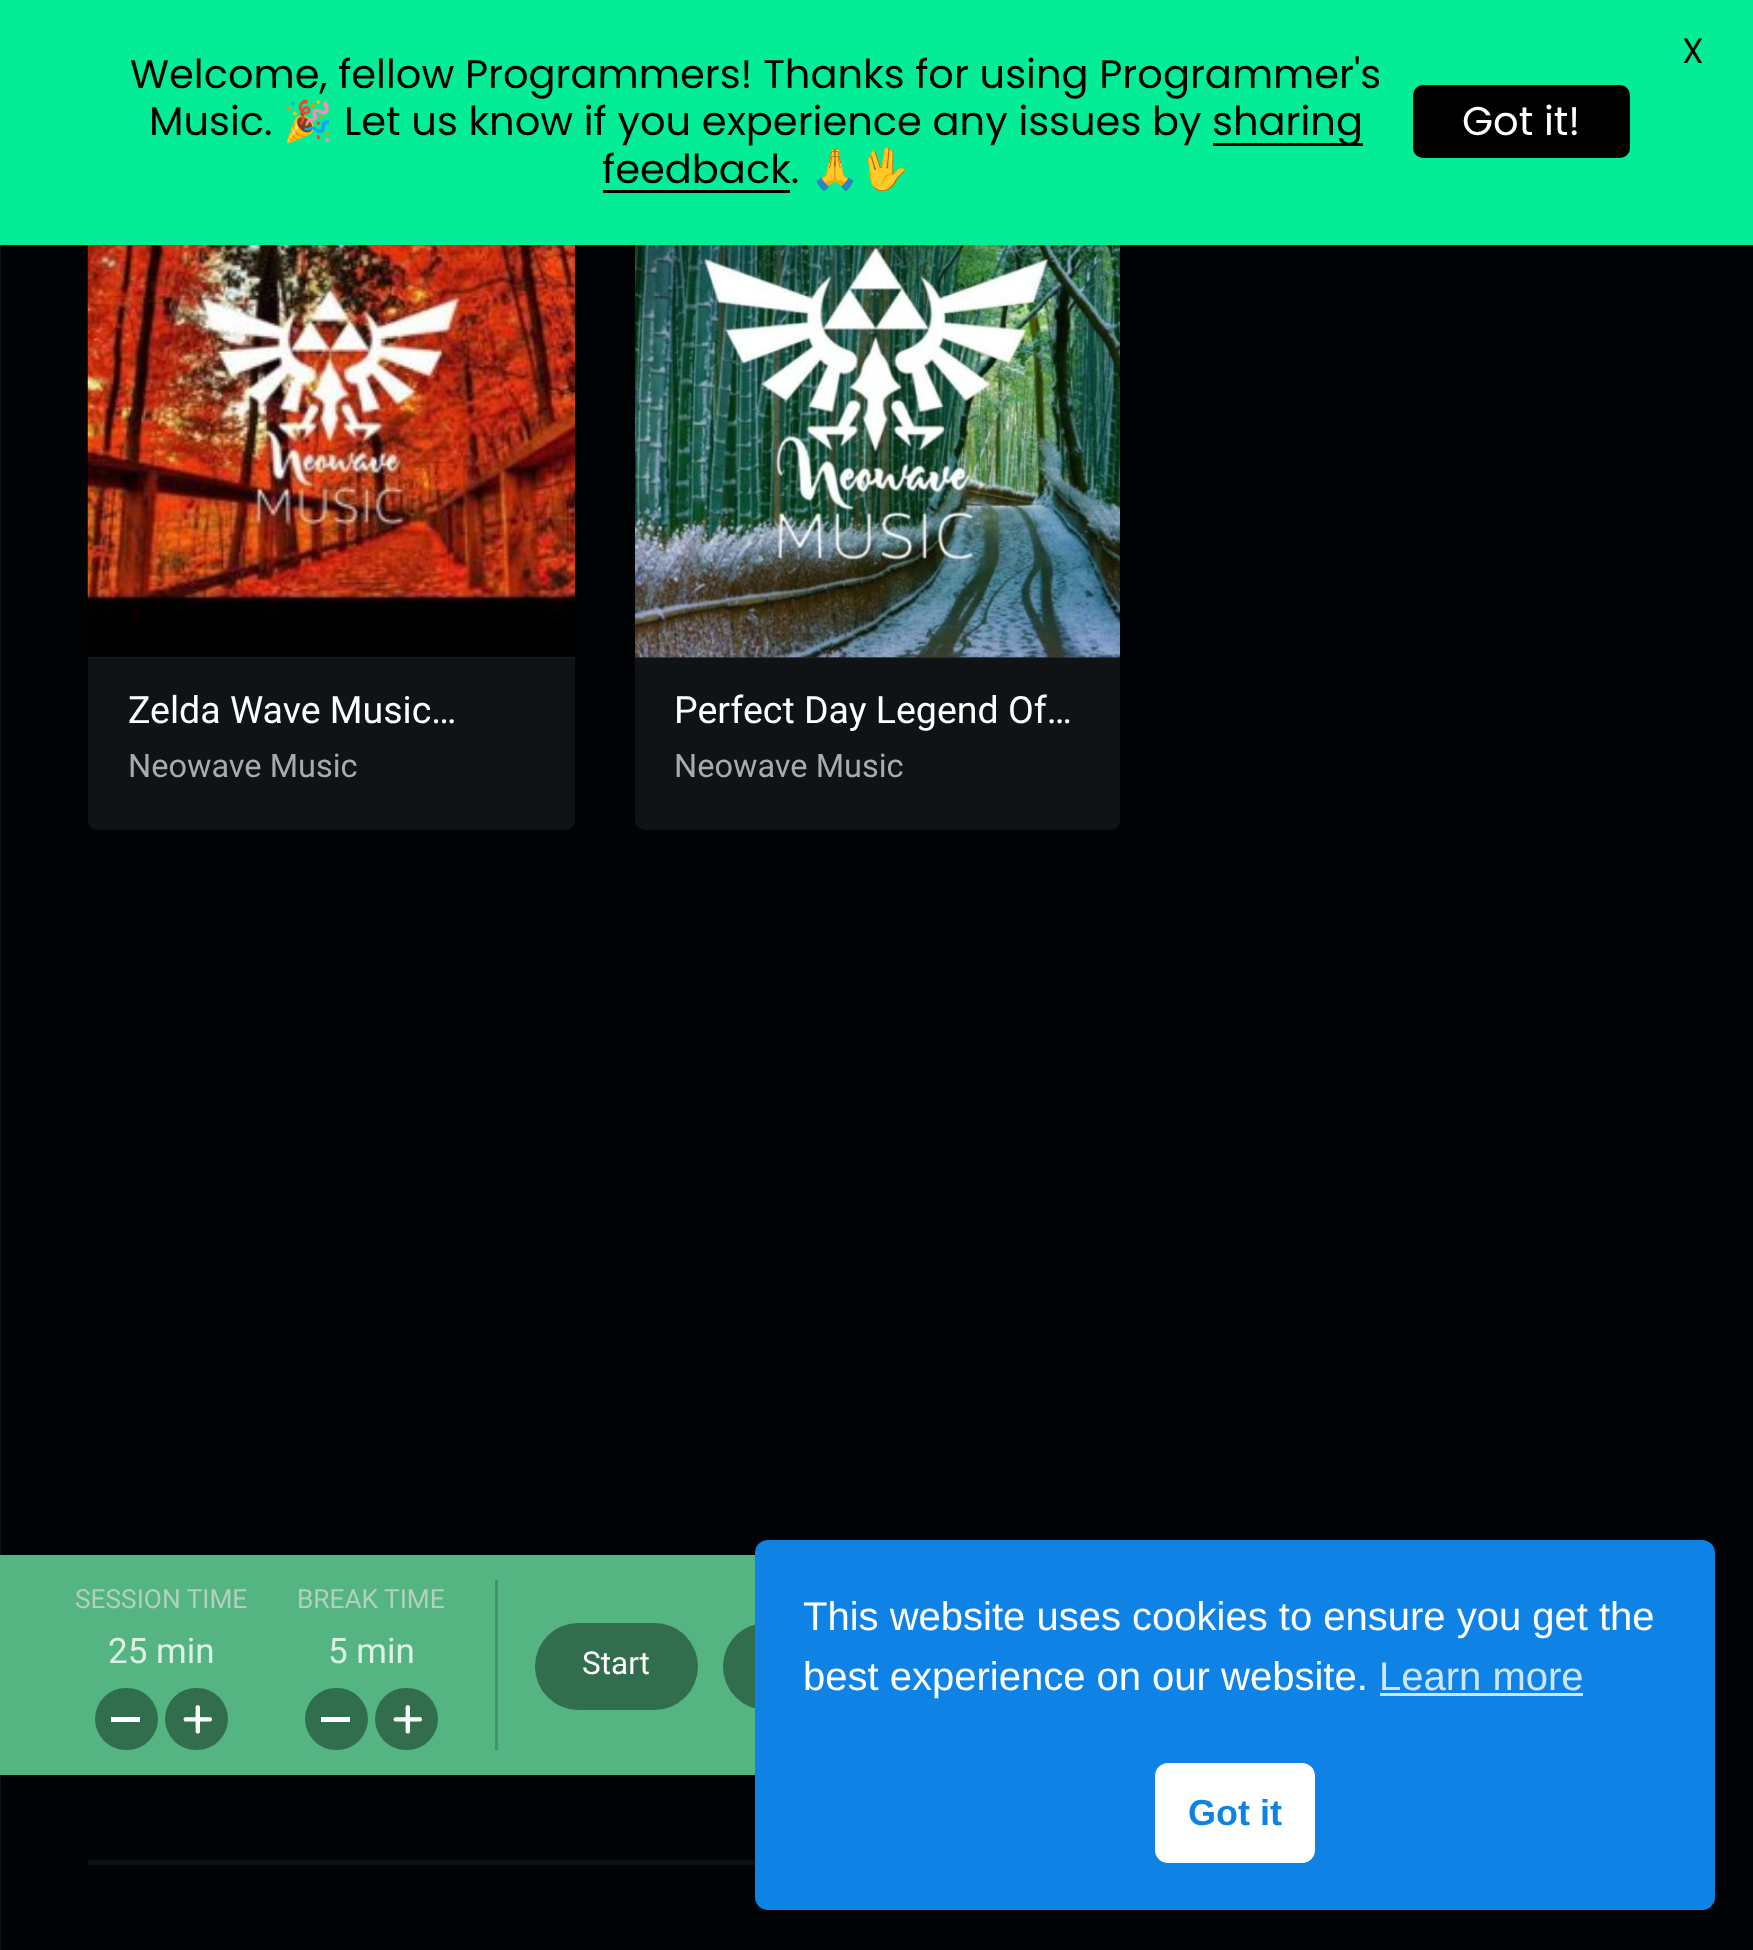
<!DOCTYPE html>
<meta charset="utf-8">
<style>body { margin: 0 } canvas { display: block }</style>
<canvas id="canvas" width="1753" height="1950"></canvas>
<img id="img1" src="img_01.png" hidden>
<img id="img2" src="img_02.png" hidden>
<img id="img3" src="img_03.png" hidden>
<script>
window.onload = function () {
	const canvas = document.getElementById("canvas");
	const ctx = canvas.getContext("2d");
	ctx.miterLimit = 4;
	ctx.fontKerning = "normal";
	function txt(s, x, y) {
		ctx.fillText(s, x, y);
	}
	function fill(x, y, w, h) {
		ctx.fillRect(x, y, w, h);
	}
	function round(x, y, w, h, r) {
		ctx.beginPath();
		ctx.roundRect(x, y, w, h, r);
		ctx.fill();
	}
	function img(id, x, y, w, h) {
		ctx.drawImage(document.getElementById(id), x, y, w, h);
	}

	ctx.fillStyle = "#010305";
	fill(0, 0, 1753, 1950);
	ctx.fillStyle = "#101316";
	round(88, 173, 487, 657, 10);
	round(635, 173, 485, 657, 10);
	ctx.fillStyle = "#03ED96";
	fill(0, 0, 1753, 245);
	ctx.fillStyle = "#000000";
	fill(1213, 143, 150, 3);
	fill(603, 190, 187, 3);
	round(1413, 85, 217, 73, 10);
	ctx.fillStyle = "#0E1114";
	fill(0, 245, 1, 1705);
	ctx.fillStyle = "rgba(110, 120, 130, 0.2)";
	fill(88, 657, 487, 1);
	img("img1", 87, 245, 488, 413);
	fill(635, 657, 485, 1);
	img("img2", 635, 245, 485, 413);
	ctx.fillStyle = "#54B582";
	fill(0, 1555, 755, 220);
	ctx.fillStyle = "#439168";
	fill(495, 1580, 3, 170);
	ctx.fillStyle = "#326D4E";
	round(95, 1688, 63, 62, 31);
	ctx.fillStyle = "#FFFFFF";
	fill(111, 1717, 29, 5);
	ctx.fillStyle = "#326D4E";
	round(165, 1688, 63, 62, 31);
	img("img3", 183, 1705, 29, 29);
	round(305, 1688, 63, 62, 31);
	ctx.fillStyle = "#FFFFFF";
	fill(321, 1717, 29, 5);
	ctx.fillStyle = "#326D4E";
	round(375, 1688, 63, 62, 31);
	img("img3", 393, 1705, 29, 29);
	round(535, 1623, 163, 87, 43.5);
	round(723, 1623, 162, 87, 43.5);
	ctx.fillStyle = "#0F82E6";
	round(755, 1540, 960, 370, 13);
	ctx.fillStyle = "#CFE6FA";
	fill(1380, 1693, 203, 3);
	ctx.fillStyle = "#FFFFFF";
	round(1155, 1763, 160, 100, 13);
	ctx.fillStyle = "#0D1012";
	fill(88, 1860, 667, 5);
	ctx.font = "35px Poppins";
	ctx.fillStyle = "#000000";
	txt("X", 1682, 63);
	ctx.font = "40px Poppins";
	txt("Welcome, fellow Programmers! Thanks for using Programmer's", 130, 88);
	txt("Music.", 149, 135);
	ctx.font = "40px Noto Color Emoji";
	txt("🎉", 283, 135);
	ctx.font = "40px Poppins";
	txt("Let us know if you experience any issues by", 344, 135);
	txt("sharing", 1212, 135);
	txt("feedback.", 602, 183);
	ctx.font = "40px Noto Color Emoji";
	txt("🙏🖖", 810, 183);
	ctx.font = "40px Poppins";
	ctx.fillStyle = "#FFFFFF";
	txt("Got it!", 1462, 135);
	ctx.font = "37.5px Roboto";
	txt("Zelda Wave Music…", 128, 723);
	ctx.font = "32.5px Roboto";
	ctx.fillStyle = "#AAAAAA";
	txt("Neowave Music", 128, 777);
	ctx.font = "37.5px Roboto";
	ctx.fillStyle = "#FFFFFF";
	txt("Perfect Day Legend Of…", 674, 723);
	ctx.font = "32.5px Roboto";
	ctx.fillStyle = "#AAAAAA";
	txt("Neowave Music", 674, 777);
	ctx.font = "26.25px Roboto";
	ctx.fillStyle = "#B2CFC0";
	txt("SESSION TIME", 75, 1608);
	ctx.font = "35px Roboto";
	ctx.fillStyle = "#DDF0E6";
	txt("25 min", 108, 1663);
	ctx.font = "26.25px Roboto";
	ctx.fillStyle = "#B2CFC0";
	txt("BREAK TIME", 297, 1608);
	ctx.font = "35px Roboto";
	ctx.fillStyle = "#DDF0E6";
	txt("5 min", 328, 1663);
	ctx.font = "31.5px Roboto";
	ctx.fillStyle = "#FFFFFF";
	txt("Start", 582, 1674);
	ctx.font = "40px Liberation Sans";
	txt("This website uses cookies to ensure you get the", 803, 1630);
	txt("best experience on our website.", 803, 1690);
	ctx.fillStyle = "#CFE6FA";
	txt("Learn more", 1379, 1690);
	ctx.font = "bold 36px Liberation Sans";
	ctx.fillStyle = "#0F82E6";
	txt("Got it", 1188, 1825);
};
</script>
